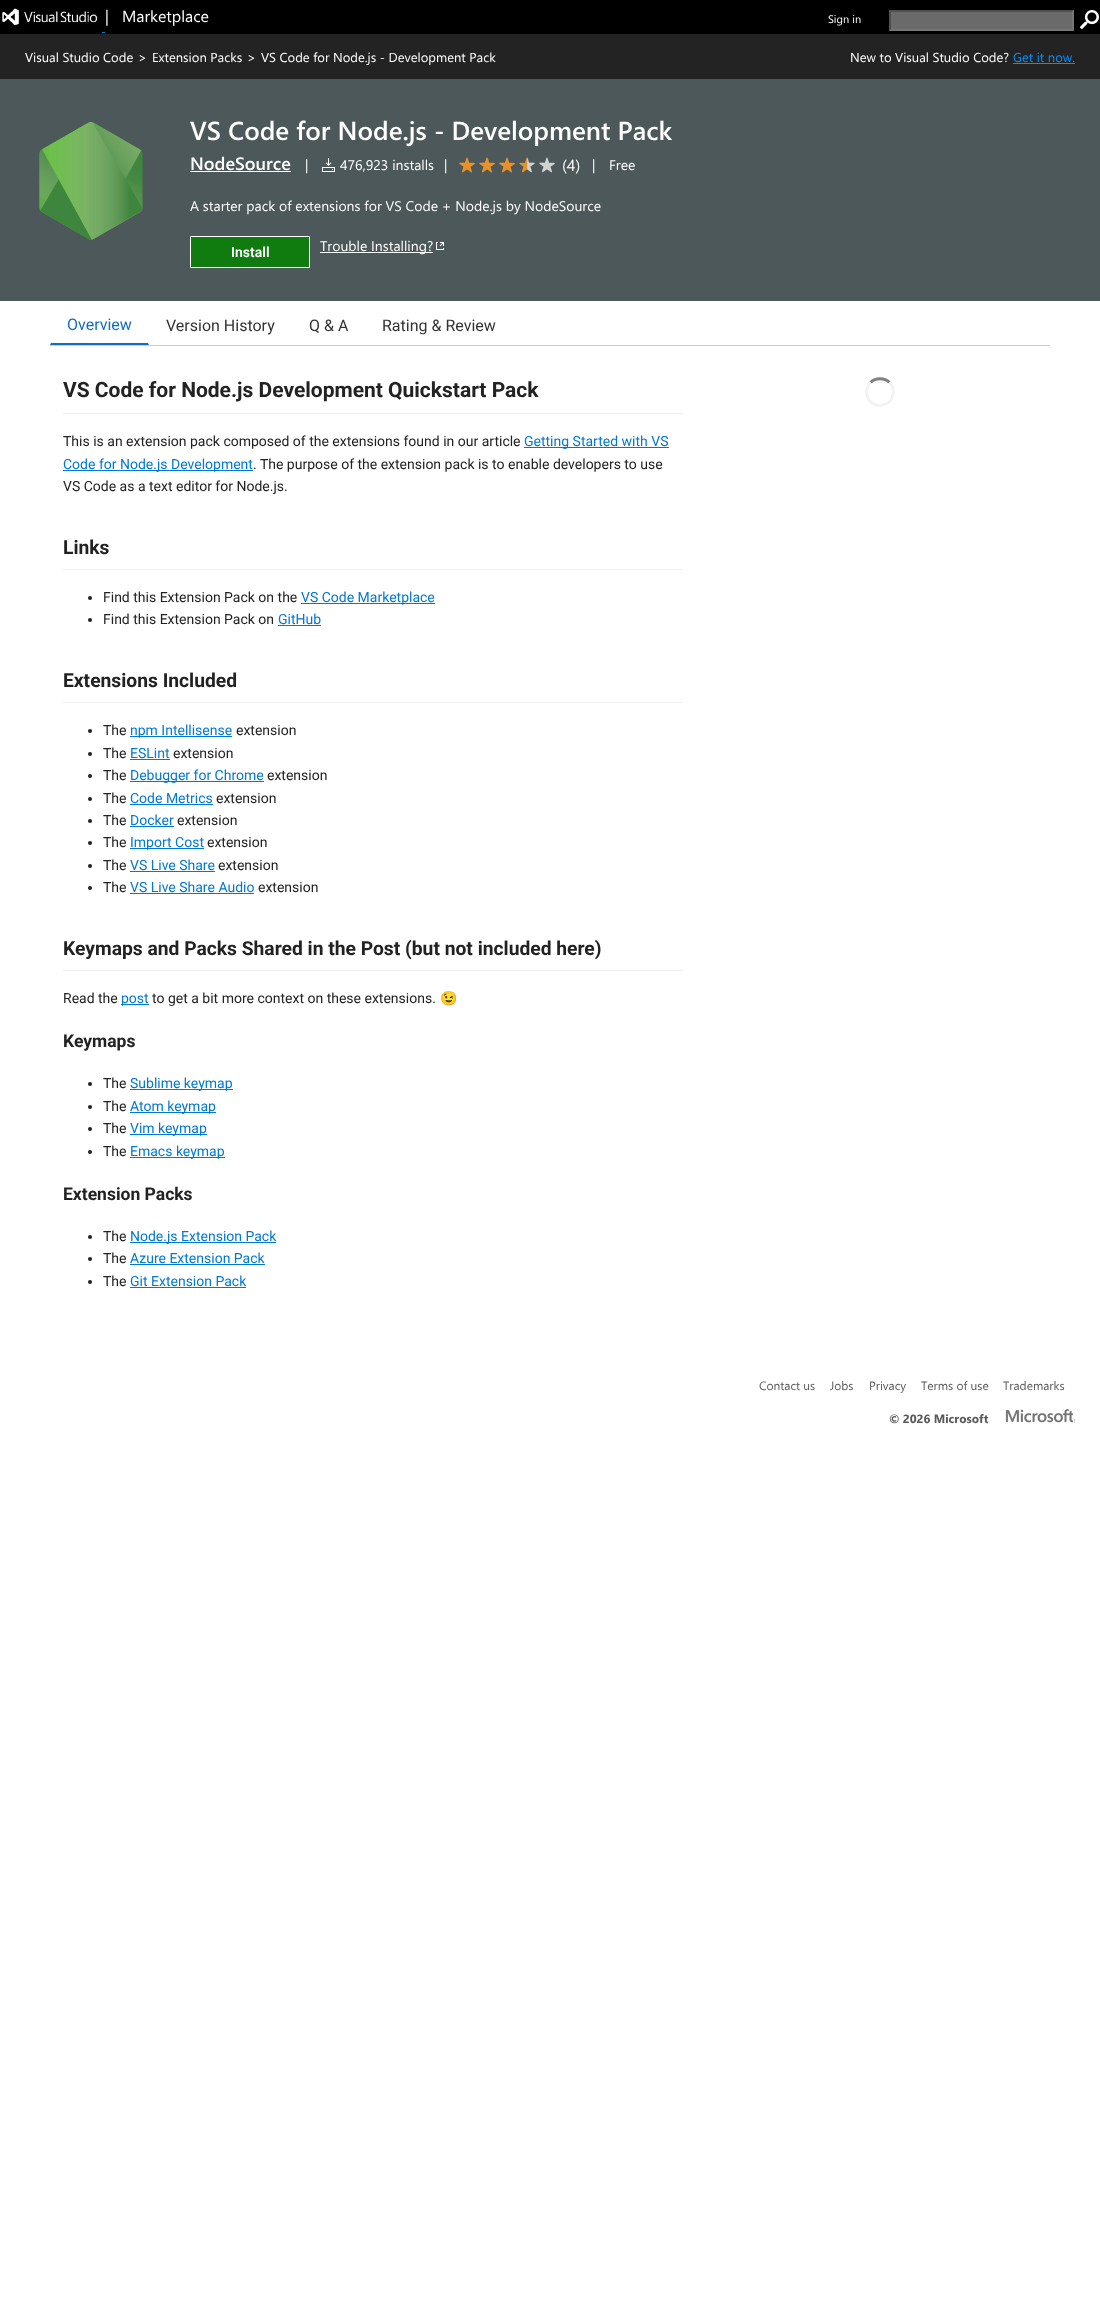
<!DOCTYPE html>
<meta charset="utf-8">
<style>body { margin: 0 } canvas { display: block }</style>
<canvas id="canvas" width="1100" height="2312"></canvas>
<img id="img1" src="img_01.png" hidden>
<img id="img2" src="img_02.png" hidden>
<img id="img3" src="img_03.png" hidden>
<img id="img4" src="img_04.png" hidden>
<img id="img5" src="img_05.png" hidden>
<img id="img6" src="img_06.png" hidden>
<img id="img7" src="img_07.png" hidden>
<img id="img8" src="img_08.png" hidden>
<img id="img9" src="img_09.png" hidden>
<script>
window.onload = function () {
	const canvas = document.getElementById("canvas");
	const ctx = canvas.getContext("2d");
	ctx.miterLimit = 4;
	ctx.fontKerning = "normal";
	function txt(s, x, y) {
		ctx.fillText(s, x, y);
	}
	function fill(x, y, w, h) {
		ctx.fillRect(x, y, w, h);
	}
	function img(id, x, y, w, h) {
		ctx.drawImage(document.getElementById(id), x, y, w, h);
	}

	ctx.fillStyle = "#FFFFFF";
	fill(0, 0, 1100, 2312);
	ctx.fillStyle = "#000000";
	fill(0, 0, 1100, 34);
	img("img1", 2, 8, 96, 17);
	ctx.fillStyle = "#0078D4";
	fill(102, 32, 3, 1);
	ctx.fillStyle = "#6A6A6A";
	fill(889, 10, 185, 21);
	ctx.fillStyle = "#4F4F4F";
	ctx.beginPath();
	ctx.moveTo(889, 10);
	ctx.lineTo(1074, 10);
	ctx.lineTo(1072, 12);
	ctx.lineTo(891, 12);
	ctx.closePath();
	ctx.fill();
	ctx.fillStyle = "#767676";
	ctx.beginPath();
	ctx.moveTo(1074, 10);
	ctx.lineTo(1074, 31);
	ctx.lineTo(1072, 29);
	ctx.lineTo(1072, 12);
	ctx.closePath();
	ctx.fill();
	ctx.beginPath();
	ctx.moveTo(1074, 31);
	ctx.lineTo(889, 31);
	ctx.lineTo(891, 29);
	ctx.lineTo(1072, 29);
	ctx.closePath();
	ctx.fill();
	ctx.fillStyle = "#4F4F4F";
	ctx.beginPath();
	ctx.moveTo(889, 31);
	ctx.lineTo(889, 10);
	ctx.lineTo(891, 12);
	ctx.lineTo(891, 29);
	ctx.closePath();
	ctx.fill();
	img("img2", 1080, 10, 19, 19);
	ctx.fillStyle = "#232323";
	fill(0, 34, 1100, 45);
	ctx.fillStyle = "#0090FF";
	fill(1013, 63, 62, 1);
	ctx.fillStyle = "#4C5859";
	fill(0, 79, 1100, 222);
	img("img3", 39, 122, 104, 118);
	ctx.fillStyle = "#FFFFFF";
	fill(190, 171, 101, 1);
	img("img4", 322, 158, 13, 14);
	img("img5", 459, 157, 16, 16);
	img("img5", 479, 157, 16, 16);
	img("img5", 499, 157, 16, 16);
	img("img6", 519, 157, 16, 16);
	img("img7", 539, 157, 16, 16);
	ctx.fillStyle = "#107C10";
	ctx.beginPath();
	ctx.rect(190.5, 236.5, 119, 31);
	ctx.fill();
	ctx.strokeStyle = "#FFFFFF";
	ctx.stroke();
	ctx.fillStyle = "#FFFFFF";
	fill(320, 252, 113, 1);
	img("img8", 436, 242, 8, 8);
	ctx.fillStyle = "#CCCCCC";
	fill(50, 345, 1000, 1);
	ctx.fillStyle = "#106EBE";
	ctx.beginPath();
	ctx.moveTo(149, 345);
	ctx.lineTo(50, 345);
	ctx.lineTo(51, 343);
	ctx.lineTo(148, 343);
	ctx.closePath();
	ctx.fill();
	ctx.fillStyle = "#EEEEEE";
	fill(63, 413, 619, 1);
	ctx.fillStyle = "#0078D4";
	fill(524, 447, 145, 1);
	fill(63, 470, 190, 1);
	ctx.fillStyle = "#EEEEEE";
	fill(63, 569, 619, 1);
	ctx.fillStyle = "#222222";
	ctx.beginPath();
	ctx.arc(90, 598, 2, 0, Math.PI * 2);
	ctx.fill();
	ctx.fillStyle = "#0078D4";
	fill(301, 603, 134, 1);
	ctx.fillStyle = "#222222";
	ctx.beginPath();
	ctx.arc(90, 620, 2, 0, Math.PI * 2);
	ctx.fill();
	ctx.fillStyle = "#0078D4";
	fill(278, 625, 43, 1);
	ctx.fillStyle = "#EEEEEE";
	fill(63, 702, 619, 1);
	ctx.fillStyle = "#222222";
	ctx.beginPath();
	ctx.arc(90, 731, 2, 0, Math.PI * 2);
	ctx.fill();
	ctx.fillStyle = "#0078D4";
	fill(130, 736, 102, 1);
	ctx.fillStyle = "#222222";
	ctx.beginPath();
	ctx.arc(90, 754, 2, 0, Math.PI * 2);
	ctx.fill();
	ctx.fillStyle = "#0078D4";
	fill(130, 759, 40, 1);
	ctx.fillStyle = "#222222";
	ctx.beginPath();
	ctx.arc(90, 776, 2, 0, Math.PI * 2);
	ctx.fill();
	ctx.fillStyle = "#0078D4";
	fill(130, 781, 134, 1);
	ctx.fillStyle = "#222222";
	ctx.beginPath();
	ctx.arc(90, 799, 2, 0, Math.PI * 2);
	ctx.fill();
	ctx.fillStyle = "#0078D4";
	fill(130, 804, 83, 1);
	ctx.fillStyle = "#222222";
	ctx.beginPath();
	ctx.arc(90, 821, 2, 0, Math.PI * 2);
	ctx.fill();
	ctx.fillStyle = "#0078D4";
	fill(130, 826, 44, 1);
	ctx.fillStyle = "#222222";
	ctx.beginPath();
	ctx.arc(90, 843, 2, 0, Math.PI * 2);
	ctx.fill();
	ctx.fillStyle = "#0078D4";
	fill(130, 848, 74, 1);
	ctx.fillStyle = "#222222";
	ctx.beginPath();
	ctx.arc(90, 866, 2, 0, Math.PI * 2);
	ctx.fill();
	ctx.fillStyle = "#0078D4";
	fill(130, 871, 85, 1);
	ctx.fillStyle = "#222222";
	ctx.beginPath();
	ctx.arc(90, 888, 2, 0, Math.PI * 2);
	ctx.fill();
	ctx.fillStyle = "#0078D4";
	fill(130, 893, 124, 1);
	ctx.fillStyle = "#EEEEEE";
	fill(63, 970, 619, 1);
	ctx.fillStyle = "#0078D4";
	fill(121, 1004, 28, 1);
	ctx.fillStyle = "#222222";
	ctx.beginPath();
	ctx.arc(90, 1084, 2, 0, Math.PI * 2);
	ctx.fill();
	ctx.fillStyle = "#0078D4";
	fill(130, 1089, 103, 1);
	ctx.fillStyle = "#222222";
	ctx.beginPath();
	ctx.arc(90, 1107, 2, 0, Math.PI * 2);
	ctx.fill();
	ctx.fillStyle = "#0078D4";
	fill(130, 1112, 86, 1);
	ctx.fillStyle = "#222222";
	ctx.beginPath();
	ctx.arc(90, 1129, 2, 0, Math.PI * 2);
	ctx.fill();
	ctx.fillStyle = "#0078D4";
	fill(130, 1134, 77, 1);
	ctx.fillStyle = "#222222";
	ctx.beginPath();
	ctx.arc(90, 1152, 2, 0, Math.PI * 2);
	ctx.fill();
	ctx.fillStyle = "#0078D4";
	fill(130, 1157, 95, 1);
	ctx.fillStyle = "#222222";
	ctx.beginPath();
	ctx.arc(90, 1237, 2, 0, Math.PI * 2);
	ctx.fill();
	ctx.fillStyle = "#0078D4";
	fill(130, 1242, 146, 1);
	ctx.fillStyle = "#222222";
	ctx.beginPath();
	ctx.arc(90, 1259, 2, 0, Math.PI * 2);
	ctx.fill();
	ctx.fillStyle = "#0078D4";
	fill(130, 1264, 135, 1);
	ctx.fillStyle = "#222222";
	ctx.beginPath();
	ctx.arc(90, 1282, 2, 0, Math.PI * 2);
	ctx.fill();
	ctx.fillStyle = "#0078D4";
	fill(130, 1287, 116, 1);
	ctx.beginPath();
	ctx.moveTo(870.5, 382.5);
	ctx.bezierCurveTo(875.5, 377.5, 884.5, 377.5, 889.5, 382.5);
	ctx.strokeStyle = "#808080";
	ctx.lineWidth = 3;
	ctx.stroke();
	ctx.beginPath();
	ctx.moveTo(889.5, 382.5);
	ctx.bezierCurveTo(892.5, 385.5, 894, 390.5, 893, 394.5);
	ctx.bezierCurveTo(890, 410.5, 866.5, 408, 866.5, 392);
	ctx.bezierCurveTo(866.5, 388.5, 868, 385, 870.5, 382.5);
	ctx.strokeStyle = "#F3F3F3";
	ctx.stroke();
	img("img9", 1005, 1409, 70, 14);
	ctx.font = "16px Segoe UI";
	ctx.fillStyle = "#FFFFFF";
	txt("|   Marketplace", 105, 22);
	ctx.font = "11px Segoe UI";
	txt("Sign in", 828, 23);
	ctx.font = "13px Segoe UI";
	txt("Visual Studio Code", 25, 62);
	txt(">", 138, 62);
	txt("Extension Packs", 152, 62);
	txt(">", 247, 62);
	txt("VS Code for Node.js - Development Pack", 261, 62);
	txt("New to Visual Studio Code?", 850, 62);
	ctx.fillStyle = "#0090FF";
	txt("Get it now.", 1013, 62);
	ctx.font = "600 26px Segoe UI";
	ctx.fillStyle = "#FFFFFF";
	txt("VS Code for Node.js - Development Pack", 190, 140);
	ctx.font = "600 18px Segoe UI";
	txt("NodeSource", 190, 170);
	ctx.font = "14px Segoe UI";
	txt("|", 305, 170);
	txt("476,923 installs", 340, 170);
	txt("|", 444, 170);
	ctx.font = "16px Segoe UI";
	txt("(4)", 562, 171);
	ctx.font = "14px Segoe UI";
	txt("|", 592, 170);
	txt("Free", 609, 170);
	txt("A starter pack of extensions for VS Code + Node.js by NodeSource", 190, 211);
	ctx.font = "600 14px Roboto";
	txt("Install", 231, 257);
	ctx.font = "14px Segoe UI";
	txt("Trouble Installing?", 320, 251);
	ctx.font = "16px Roboto";
	ctx.fillStyle = "#106EBE";
	txt("Overview", 67, 330);
	ctx.fillStyle = "#333333";
	txt("Version History", 166, 331);
	txt("Q & A", 309, 331);
	txt("Rating & Review", 382, 331);
	ctx.font = "bold 21px Roboto";
	ctx.fillStyle = "#222222";
	txt("VS Code for Node.js Development Quickstart Pack", 63, 397);
	ctx.font = "14px Roboto";
	txt("This is an extension pack composed of the extensions found in our article", 63, 446);
	ctx.fillStyle = "#0078D4";
	txt("Getting Started with VS", 524, 446);
	txt("Code for Node.js Development", 63, 469);
	ctx.fillStyle = "#222222";
	txt(". The purpose of the extension pack is to enable developers to use", 253, 469);
	txt("VS Code as a text editor for Node.js.", 63, 491);
	ctx.font = "bold 19.25px Roboto";
	txt("Links", 63, 554);
	ctx.font = "14px Roboto";
	txt("Find this Extension Pack on the", 103, 602);
	ctx.fillStyle = "#0078D4";
	txt("VS Code Marketplace", 301, 602);
	ctx.fillStyle = "#222222";
	txt("Find this Extension Pack on", 103, 624);
	ctx.fillStyle = "#0078D4";
	txt("GitHub", 278, 624);
	ctx.font = "bold 19.25px Roboto";
	ctx.fillStyle = "#222222";
	txt("Extensions Included", 63, 687);
	ctx.font = "14px Roboto";
	txt("The", 103, 735);
	ctx.fillStyle = "#0078D4";
	txt("npm Intellisense", 130, 735);
	ctx.fillStyle = "#222222";
	txt("extension", 236, 735);
	txt("The", 103, 758);
	ctx.fillStyle = "#0078D4";
	txt("ESLint", 130, 758);
	ctx.fillStyle = "#222222";
	txt("extension", 173, 758);
	txt("The", 103, 780);
	ctx.fillStyle = "#0078D4";
	txt("Debugger for Chrome", 130, 780);
	ctx.fillStyle = "#222222";
	txt("extension", 267, 780);
	txt("The", 103, 803);
	ctx.fillStyle = "#0078D4";
	txt("Code Metrics", 130, 803);
	ctx.fillStyle = "#222222";
	txt("extension", 216, 803);
	txt("The", 103, 825);
	ctx.fillStyle = "#0078D4";
	txt("Docker", 130, 825);
	ctx.fillStyle = "#222222";
	txt("extension", 177, 825);
	txt("The", 103, 847);
	ctx.fillStyle = "#0078D4";
	txt("Import Cost", 130, 847);
	ctx.fillStyle = "#222222";
	txt("extension", 207, 847);
	txt("The", 103, 870);
	ctx.fillStyle = "#0078D4";
	txt("VS Live Share", 130, 870);
	ctx.fillStyle = "#222222";
	txt("extension", 218, 870);
	txt("The", 103, 892);
	ctx.fillStyle = "#0078D4";
	txt("VS Live Share Audio", 130, 892);
	ctx.fillStyle = "#222222";
	txt("extension", 258, 892);
	ctx.font = "bold 19.25px Roboto";
	txt("Keymaps and Packs Shared in the Post (but not included here)", 63, 955);
	ctx.font = "14px Roboto";
	txt("Read the", 63, 1003);
	ctx.fillStyle = "#0078D4";
	txt("post", 121, 1003);
	ctx.fillStyle = "#222222";
	txt("to get a bit more context on these extensions.", 152, 1003);
	ctx.font = "14px Noto Color Emoji";
	txt("😉", 440, 1003);
	ctx.font = "bold 17.5px Roboto";
	txt("Keymaps", 63, 1047);
	ctx.font = "14px Roboto";
	txt("The", 103, 1088);
	ctx.fillStyle = "#0078D4";
	txt("Sublime keymap", 130, 1088);
	ctx.fillStyle = "#222222";
	txt("The", 103, 1111);
	ctx.fillStyle = "#0078D4";
	txt("Atom keymap", 130, 1111);
	ctx.fillStyle = "#222222";
	txt("The", 103, 1133);
	ctx.fillStyle = "#0078D4";
	txt("Vim keymap", 130, 1133);
	ctx.fillStyle = "#222222";
	txt("The", 103, 1156);
	ctx.fillStyle = "#0078D4";
	txt("Emacs keymap", 130, 1156);
	ctx.font = "bold 17.5px Roboto";
	ctx.fillStyle = "#222222";
	txt("Extension Packs", 63, 1200);
	ctx.font = "14px Roboto";
	txt("The", 103, 1241);
	ctx.fillStyle = "#0078D4";
	txt("Node.js Extension Pack", 130, 1241);
	ctx.fillStyle = "#222222";
	txt("The", 103, 1263);
	ctx.fillStyle = "#0078D4";
	txt("Azure Extension Pack", 130, 1263);
	ctx.fillStyle = "#222222";
	txt("The", 103, 1286);
	ctx.fillStyle = "#0078D4";
	txt("Git Extension Pack", 130, 1286);
	ctx.font = "12px Segoe UI";
	ctx.fillStyle = "#595958";
	txt("Contact us", 759, 1390);
	txt("Jobs", 830, 1390);
	txt("Privacy", 869, 1390);
	txt("Terms of use", 921, 1390);
	txt("Trademarks", 1003, 1390);
	ctx.font = "bold 12px Segoe UI";
	txt("© 2026 Microsoft", 889, 1423);
};
</script>
